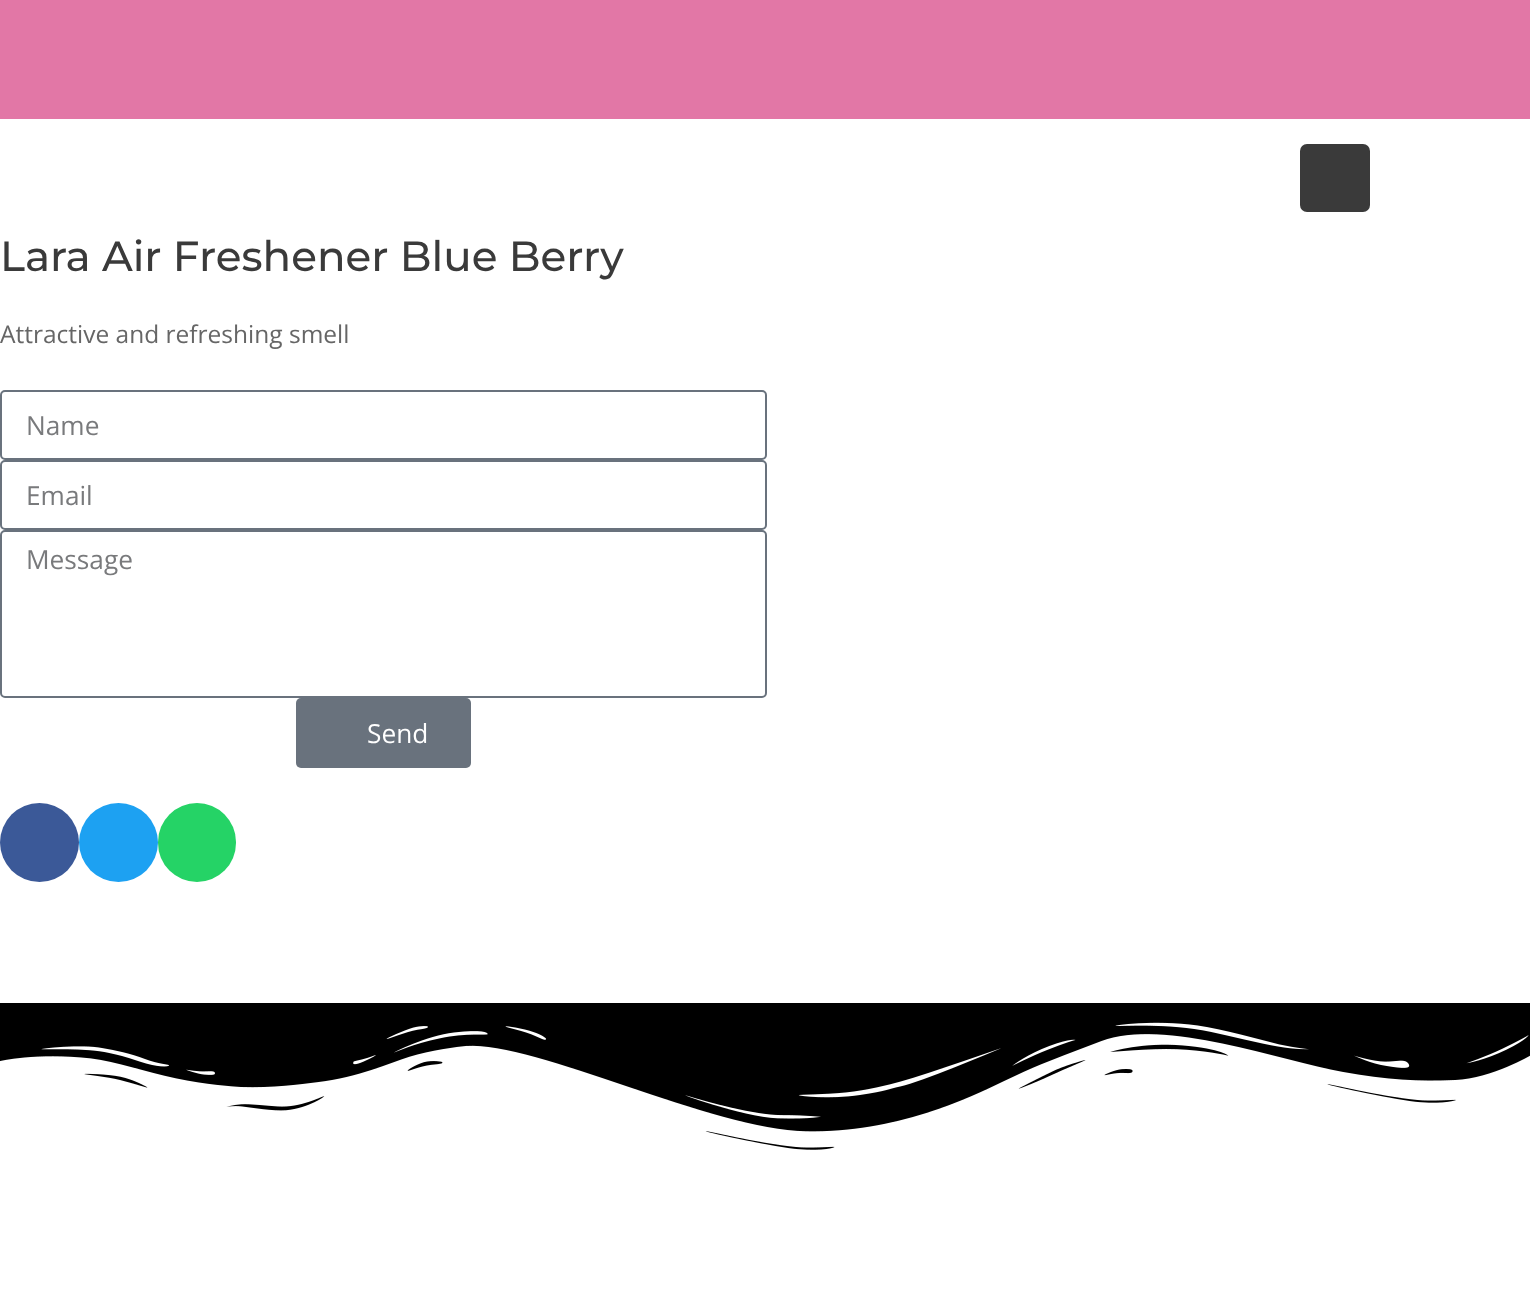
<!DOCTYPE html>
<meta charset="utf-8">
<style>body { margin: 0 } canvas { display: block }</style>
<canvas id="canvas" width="1530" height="1297"></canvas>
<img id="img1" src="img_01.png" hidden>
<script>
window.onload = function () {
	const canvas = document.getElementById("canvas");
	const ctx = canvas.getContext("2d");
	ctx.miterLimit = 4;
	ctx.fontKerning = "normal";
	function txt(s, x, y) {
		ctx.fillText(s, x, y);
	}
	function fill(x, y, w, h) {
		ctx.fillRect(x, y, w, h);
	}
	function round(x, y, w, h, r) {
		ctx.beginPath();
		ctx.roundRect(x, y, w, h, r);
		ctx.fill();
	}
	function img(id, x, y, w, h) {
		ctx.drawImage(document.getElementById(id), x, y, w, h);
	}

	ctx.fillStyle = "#FFFFFF";
	fill(0, 0, 1530, 1297);
	ctx.fillStyle = "#E277A6";
	fill(0, 0, 1530, 119);
	ctx.fillStyle = "#3A3A3A";
	round(1300, 144, 70, 68, 7);
	ctx.beginPath();
	ctx.roundRect(1, 391, 765, 68, 4);
	ctx.strokeStyle = "#69727D";
	ctx.lineWidth = 2;
	ctx.stroke();
	ctx.beginPath();
	ctx.roundRect(1, 461, 765, 68, 4);
	ctx.stroke();
	ctx.beginPath();
	ctx.roundRect(1, 531, 765, 166, 4);
	ctx.stroke();
	ctx.fillStyle = "#69727D";
	round(296, 698, 175, 70, 5);
	ctx.fillStyle = "#3B5998";
	ctx.beginPath();
	ctx.arc(39.5, 842.5, 39.5, 0, Math.PI * 2);
	ctx.fill();
	ctx.fillStyle = "#1DA1F2";
	ctx.beginPath();
	ctx.arc(118.5, 842.5, 39.5, 0, Math.PI * 2);
	ctx.fill();
	ctx.fillStyle = "#25D366";
	round(158, 803, 78, 79, 39);
	img("img1", 0, 1003, 1530, 147);
	ctx.font = "500 42px Montserrat";
	ctx.fillStyle = "#3A3A3A";
	txt("Lara Air Freshener Blue Berry", 0, 271);
	ctx.font = "24.5px Open Sans";
	ctx.fillStyle = "#666666";
	txt("Attractive and refreshing smell", 0, 343);
	ctx.font = "26.25px Open Sans";
	ctx.fillStyle = "#797A7C";
	txt("Name", 26, 435);
	txt("Email", 26, 505);
	txt("Message", 26, 569);
	ctx.fillStyle = "#FFFFFF";
	txt("Send", 367, 743);
};
</script>
